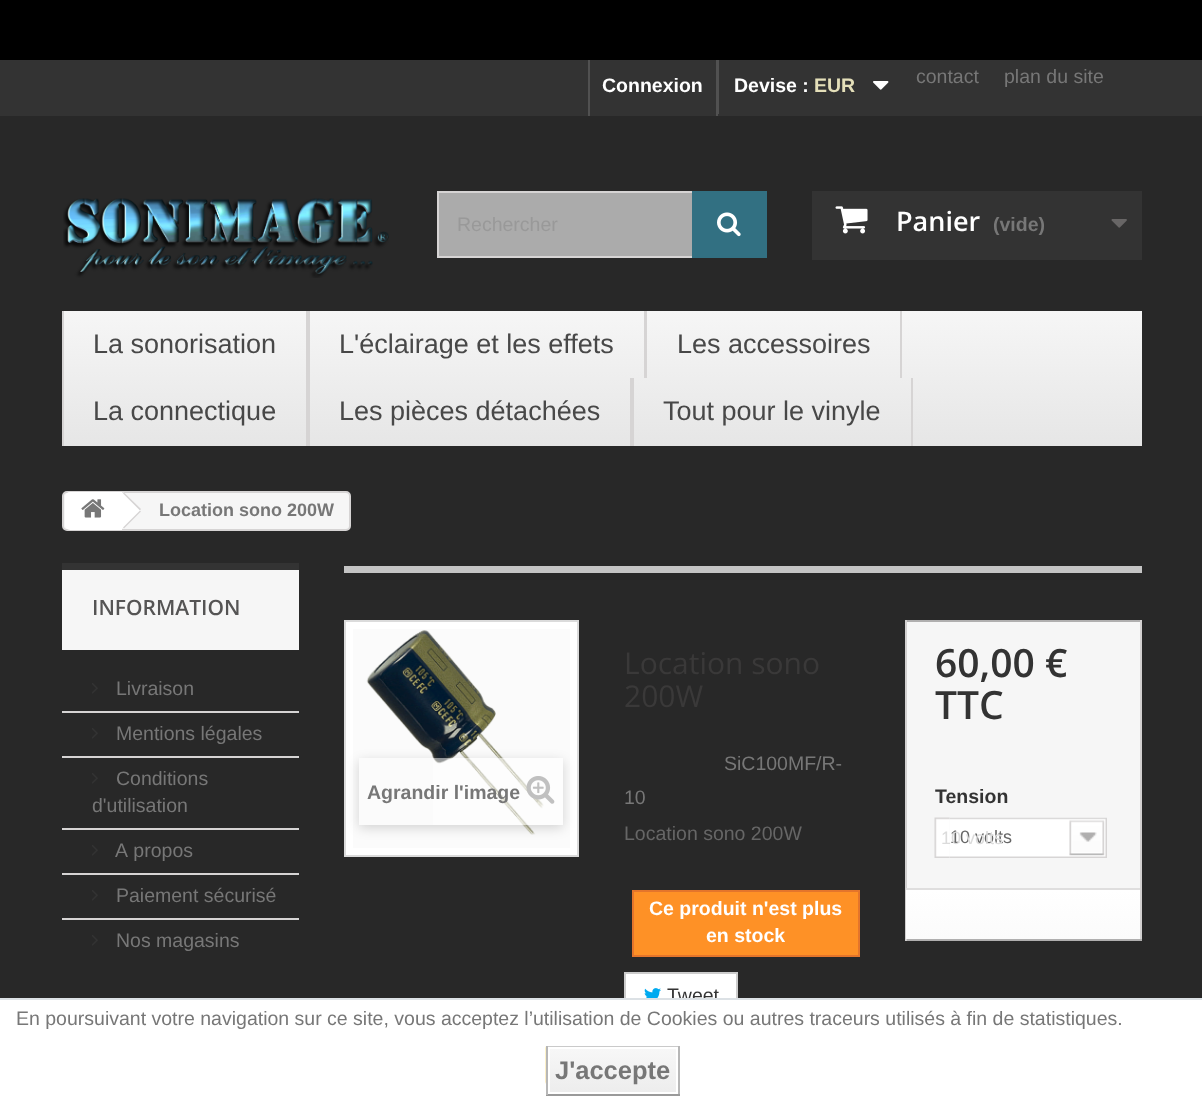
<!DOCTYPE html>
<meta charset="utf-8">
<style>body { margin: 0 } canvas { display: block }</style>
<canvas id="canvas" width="1202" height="1101"></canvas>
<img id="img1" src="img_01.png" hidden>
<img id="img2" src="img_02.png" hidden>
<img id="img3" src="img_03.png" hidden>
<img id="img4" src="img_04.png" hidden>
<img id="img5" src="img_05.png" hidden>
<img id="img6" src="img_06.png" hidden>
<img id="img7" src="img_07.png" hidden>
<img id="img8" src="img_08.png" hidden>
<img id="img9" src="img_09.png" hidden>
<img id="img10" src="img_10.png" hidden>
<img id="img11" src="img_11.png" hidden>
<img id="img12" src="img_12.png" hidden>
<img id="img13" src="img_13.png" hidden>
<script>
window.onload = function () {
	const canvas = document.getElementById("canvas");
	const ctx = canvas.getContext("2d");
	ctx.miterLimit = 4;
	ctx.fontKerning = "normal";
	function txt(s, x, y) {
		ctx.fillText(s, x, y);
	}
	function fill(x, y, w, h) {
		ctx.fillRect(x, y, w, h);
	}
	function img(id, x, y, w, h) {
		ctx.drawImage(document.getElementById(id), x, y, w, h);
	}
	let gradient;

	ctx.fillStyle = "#282828";
	fill(0, 0, 1202, 1101);
	ctx.fillStyle = "#000000";
	fill(0, 0, 1202, 60);
	ctx.fillStyle = "#333333";
	fill(0, 60, 1202, 56);
	ctx.fillStyle = "#515151";
	fill(716, 60, 2, 56);
	fill(588, 60, 2, 56);
	fill(718, 60, 1, 54);
	img("img1", 873, 81, 16, 9);
	img("img2", 63, 198, 326, 80);
	ctx.fillStyle = "#ABABAB";
	fill(439, 193, 253, 63);
	ctx.strokeStyle = "#D6D4D4";
	ctx.lineWidth = 2;
	ctx.strokeRect(438, 192, 328, 65);
	ctx.fillStyle = "#327082";
	fill(692, 191, 75, 67);
	img("img3", 717, 212, 24, 25);
	ctx.fillStyle = "#333333";
	fill(812, 191, 330, 69);
	img("img4", 835, 206, 33, 28);
	img("img5", 1111, 219, 16, 9);
	gradient = ctx.createLinearGradient(62, 311, 62, 446);
	gradient.addColorStop(0, "#F6F6F6");
	gradient.addColorStop(1, "#E6E6E6");
	ctx.fillStyle = gradient;
	fill(64, 311, 1078, 135);
	ctx.fillStyle = "#D6D4D4";
	fill(306, 311, 4, 67);
	fill(62, 311, 2, 135);
	fill(644, 311, 3, 67);
	fill(900, 311, 2, 67);
	fill(306, 378, 4, 68);
	fill(630, 378, 4, 68);
	fill(911, 378, 2, 68);
	ctx.fillStyle = "#F6F6F6";
	ctx.beginPath();
	ctx.roundRect(63, 492, 287, 38, 4);
	ctx.fill();
	ctx.stroke();
	ctx.fillStyle = "#FFFFFF";
	ctx.beginPath();
	ctx.roundRect(65, 492, 57, 38, [5, 0, 0, 5]);
	ctx.fill();
	img("img6", 81, 499, 24, 19);
	ctx.beginPath();
	ctx.moveTo(125, 493.5);
	ctx.lineTo(140, 508);
	ctx.bezierCurveTo(141, 509.5, 141, 511, 140, 512.5);
	ctx.lineTo(125, 527.5);
	ctx.bezierCurveTo(124, 528.5, 122, 528.5, 121, 527.5);
	ctx.lineTo(106, 512.5);
	ctx.bezierCurveTo(105, 511, 105, 509.5, 106, 508);
	ctx.lineTo(121, 493.5);
	ctx.bezierCurveTo(122, 492, 124, 492, 125, 493.5);
	ctx.closePath();
	ctx.fill();
	ctx.fillStyle = "#D6D4D4";
	ctx.beginPath();
	ctx.moveTo(124, 492.5);
	ctx.lineTo(141, 509);
	ctx.lineTo(140, 510.5);
	ctx.lineTo(123, 493.5);
	ctx.closePath();
	ctx.fill();
	ctx.beginPath();
	ctx.moveTo(140, 510.5);
	ctx.lineTo(141, 511.5);
	ctx.lineTo(124, 528.5);
	ctx.lineTo(123, 527.5);
	ctx.closePath();
	ctx.fill();
	ctx.fillStyle = "#F6F6F6";
	fill(62, 570, 237, 80);
	ctx.fillStyle = "#333333";
	fill(62, 563, 237, 7);
	img("img7", 92, 683, 6, 11);
	ctx.fillStyle = "#D6D4D4";
	fill(62, 711, 237, 2);
	img("img7", 92, 728, 6, 11);
	fill(62, 756, 237, 2);
	img("img7", 92, 773, 6, 11);
	fill(62, 828, 237, 2);
	img("img7", 92, 845, 6, 11);
	fill(62, 873, 237, 2);
	img("img7", 92, 890, 6, 11);
	fill(62, 918, 237, 2);
	img("img7", 92, 935, 6, 11);
	ctx.fillStyle = "#C4C4C4";
	fill(344, 566, 798, 7);
	ctx.fillStyle = "#FFFFFF";
	ctx.beginPath();
	ctx.rect(345, 621, 233, 235);
	ctx.fill();
	ctx.strokeStyle = "#DBDBDB";
	ctx.stroke();
	ctx.fillStyle = "#FBFBFB";
	fill(353, 629, 217, 219);
	img("img8", 366, 630, 178, 205);
	ctx.save();
	ctx.beginPath();
	ctx.moveTo(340, 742);
	ctx.lineTo(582, 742);
	ctx.lineTo(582, 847);
	ctx.lineTo(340, 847);
	ctx.closePath();
	ctx.moveTo(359, 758);
	ctx.lineTo(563, 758);
	ctx.lineTo(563, 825);
	ctx.lineTo(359, 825);
	ctx.closePath();
	ctx.clip("evenodd");
	ctx.fillStyle = "rgba(0, 0, 0, 0.16)";
	ctx.filter = "blur(6px)";
	ctx.beginPath();
	ctx.rect(359, 761, 204, 67);
	ctx.fill();
	ctx.filter = "none";
	ctx.restore();
	ctx.fillStyle = "rgba(255, 255, 255, 0.5)";
	fill(433, 758, 130, 67);
	img("img9", 526, 776, 29, 28);
	ctx.fillStyle = "#FE9126";
	ctx.beginPath();
	ctx.rect(633, 891, 226, 65);
	ctx.fill();
	ctx.strokeStyle = "#E4752B";
	ctx.stroke();
	ctx.fillStyle = "#FFFFFF";
	fill(626, 974, 110, 24);
	ctx.strokeStyle = "#CCCCCC";
	ctx.strokeRect(625, 973, 112, 48);
	img("img10", 644, 988, 17, 10);
	ctx.fillStyle = "#F6F6F6";
	fill(907, 622, 233, 266);
	ctx.fillStyle = "#B0AFAF";
	fill(905, 620, 237, 2);
	ctx.fillStyle = "#D2D0D0";
	fill(1140, 620, 2, 321);
	ctx.fillStyle = "#B0AFAF";
	fill(905, 939, 237, 2);
	ctx.fillStyle = "#D2D0D0";
	fill(905, 620, 2, 321);
	img("img11", 934, 817, 16, 41);
	img("img12", 949, 817, 158, 41);
	gradient = ctx.createLinearGradient(1023, 890, 1023, 939);
	gradient.addColorStop(0, "#FFFFFF");
	gradient.addColorStop(1, "#FBFBFB");
	ctx.fillStyle = gradient;
	fill(906, 890, 234, 49);
	ctx.fillStyle = "#DFDEDE";
	fill(906, 888, 234, 2);
	ctx.font = "bold 19.5px Liberation Sans";
	ctx.fillStyle = "#FFFFFF";
	txt("Connexion", 602, 92);
	txt("Devise :", 734, 92);
	ctx.fillStyle = "#E4DFB9";
	txt("EUR", 814, 92);
	ctx.font = "19.5px Liberation Sans";
	ctx.fillStyle = "#777777";
	txt("contact", 916, 83);
	txt("plan du site", 1004, 83);
	ctx.fillStyle = "#999999";
	txt("Rechercher", 457, 231);
	ctx.font = "600 27px Open Sans";
	ctx.fillStyle = "#FFFFFF";
	txt("Panier", 896, 231);
	ctx.font = "bold 19.5px Liberation Sans";
	ctx.fillStyle = "#777777";
	txt("(vide)", 993, 231);
	ctx.font = "27px Liberation Sans";
	ctx.fillStyle = "#484848";
	txt("La sonorisation", 93, 353);
	txt("L'éclairage et les effets", 339, 353);
	txt("Les accessoires", 677, 353);
	txt("La connectique", 93, 420);
	txt("Les pièces détachées", 339, 420);
	txt("Tout pour le vinyle", 663, 420);
	ctx.font = "bold 18px Liberation Sans";
	ctx.fillStyle = "#777777";
	txt("Location sono 200W", 159, 516);
	ctx.font = "600 21px Open Sans";
	ctx.fillStyle = "#555454";
	txt("INFORMATION", 92, 615);
	ctx.font = "19.5px Liberation Sans";
	ctx.fillStyle = "#777777";
	txt("Livraison", 116, 695);
	txt("Mentions légales", 116, 740);
	txt("Conditions", 116, 785);
	txt("d'utilisation", 92, 812);
	ctx.wordSpacing = "1px";
	txt("A propos", 115, 857);
	ctx.wordSpacing = "0px";
	txt("Paiement sécurisé", 116, 902);
	txt("Nos magasins", 116, 947);
	ctx.font = "bold 19.5px Liberation Sans";
	txt("Agrandir l'image", 367, 799);
	ctx.font = "30px Open Sans";
	ctx.fillStyle = "#3A3939";
	txt("Location sono", 624, 674);
	txt("200W", 624, 707);
	ctx.font = "19.5px Liberation Sans";
	ctx.fillStyle = "#777777";
	txt("SiC100MF/R-", 724, 770);
	txt("10", 624, 804);
	ctx.fillStyle = "#666666";
	txt("Location sono 200W", 624, 840);
	ctx.font = "bold 19.5px Liberation Sans";
	ctx.fillStyle = "#FFFFFF";
	txt("Ce produit n'est plus", 649, 915);
	txt("en stock", 706, 942);
	ctx.font = "19.5px Liberation Sans";
	ctx.fillStyle = "#333333";
	txt("Tweet", 667, 1002);
	ctx.font = "600 39px Open Sans";
	txt("60,00 €", 935, 677);
	txt("TTC", 935, 719);
	ctx.font = "bold 19.5px Liberation Sans";
	txt("Tension", 935, 803);
	ctx.font = "18px Liberation Sans";
	ctx.fillStyle = "#666666";
	txt("10 volts", 950, 843);
	ctx.fillStyle = "#DBDBDB";
	txt("10 volts", 941, 844);
	ctx.fillStyle = "#FFFFFF";
	fill(0, 1000, 1202, 101);
	ctx.fillStyle = "#DCE1E5";
	fill(0, 998, 1202, 2);
	ctx.font = "19.5px Liberation Sans";
	ctx.fillStyle = "#777777";
	txt("En poursuivant votre navigation sur ce site, vous acceptez l’utilisation de Cookies ou autres traceurs utilisés à fin de statistiques.", 16, 1025);
	img("img13", 545, 1046, 1, 38);
	ctx.fillStyle = "#CACACA";
	fill(546, 1046, 134, 1);
	ctx.fillStyle = "#B7B7B7";
	fill(678, 1046, 2, 49);
	ctx.fillStyle = "#9A9A9A";
	fill(546, 1094, 134, 2);
	ctx.fillStyle = "#B7B7B7";
	fill(546, 1046, 2, 49);
	gradient = ctx.createLinearGradient(613, 1049, 613, 1092);
	gradient.addColorStop(0, "#F7F7F7");
	gradient.addColorStop(1, "#EDEDED");
	ctx.fillStyle = gradient;
	fill(550, 1049, 126, 43);
	ctx.font = "bold 25.5px Liberation Sans";
	ctx.fillStyle = "#777777";
	txt("J'accepte", 555, 1079);
};
</script>
